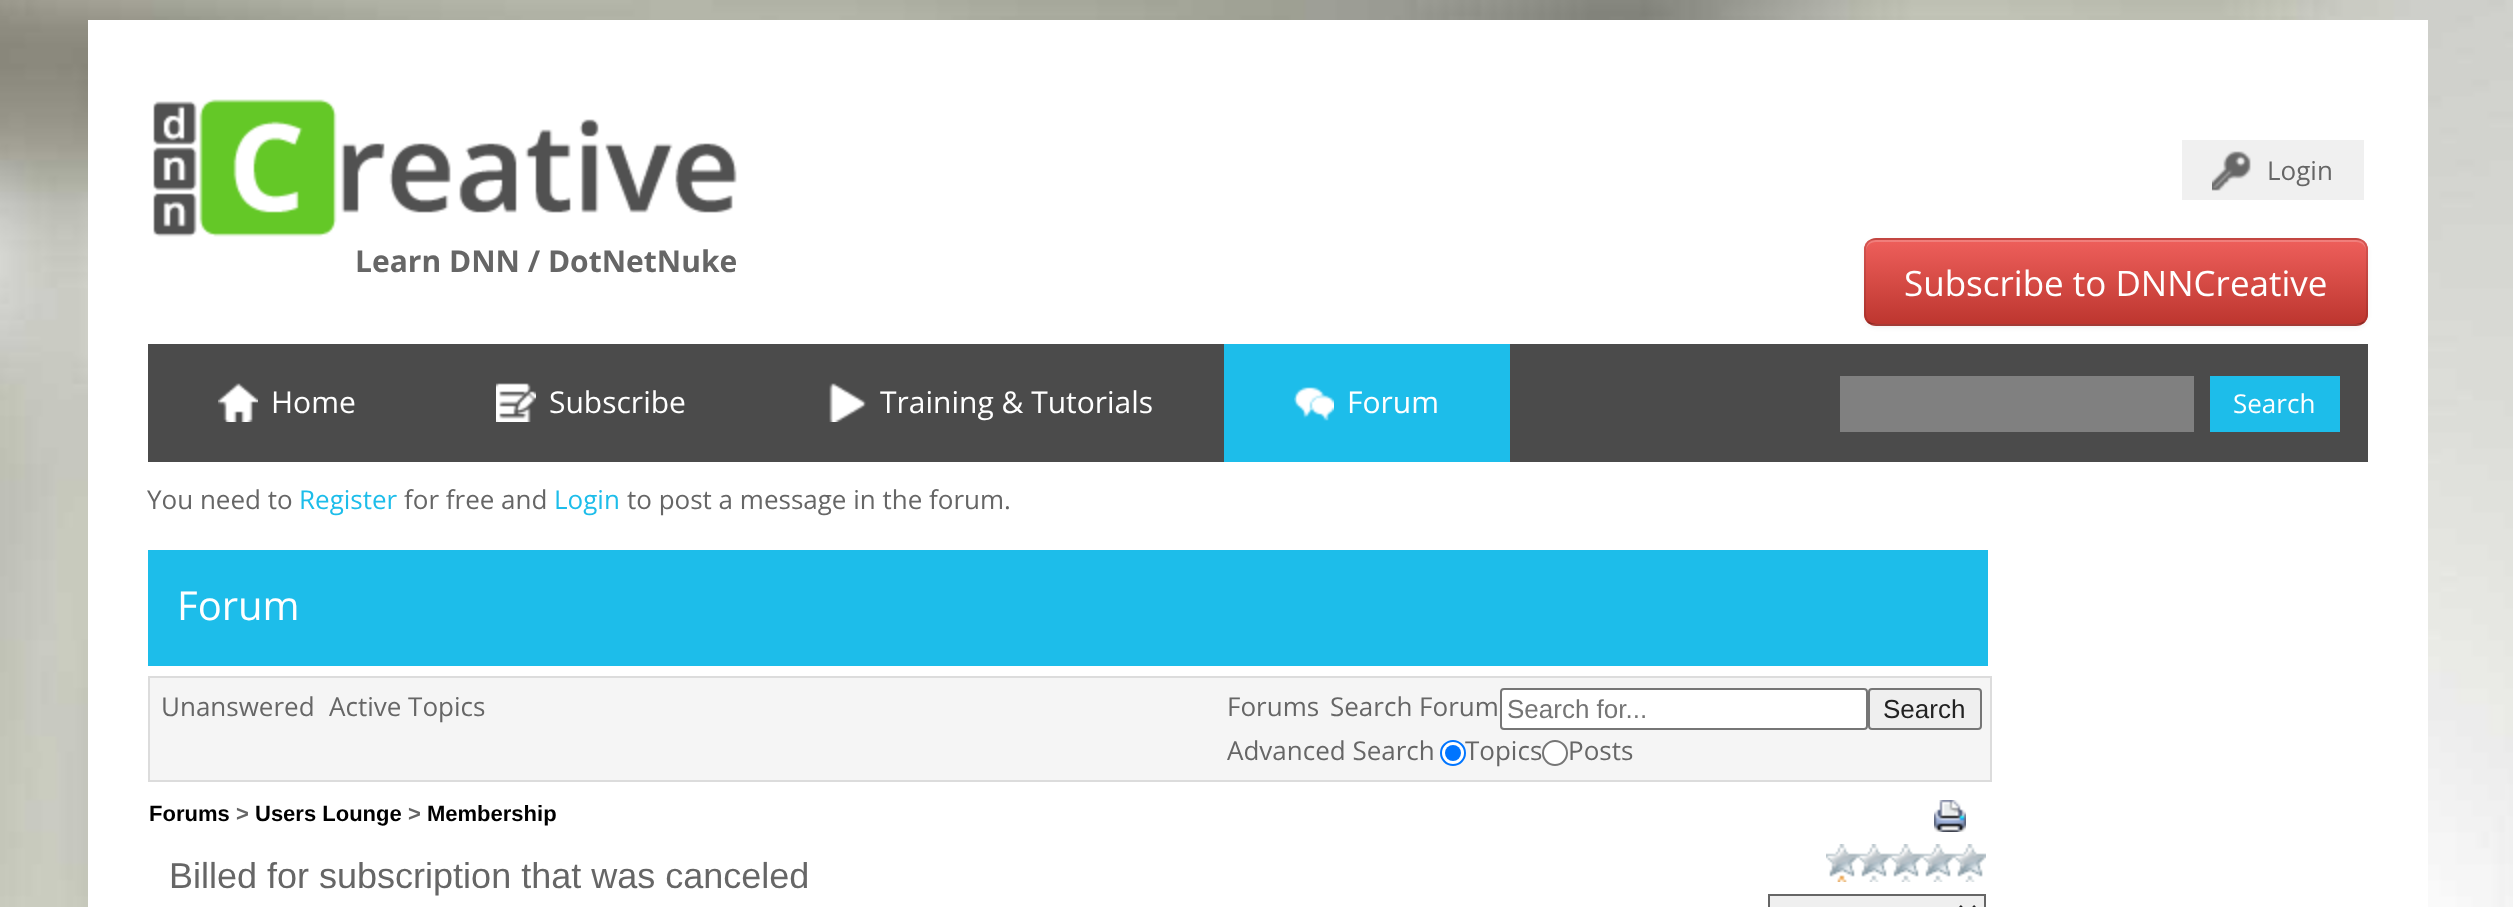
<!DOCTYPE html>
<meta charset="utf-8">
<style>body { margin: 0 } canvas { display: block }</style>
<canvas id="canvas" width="2513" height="907"></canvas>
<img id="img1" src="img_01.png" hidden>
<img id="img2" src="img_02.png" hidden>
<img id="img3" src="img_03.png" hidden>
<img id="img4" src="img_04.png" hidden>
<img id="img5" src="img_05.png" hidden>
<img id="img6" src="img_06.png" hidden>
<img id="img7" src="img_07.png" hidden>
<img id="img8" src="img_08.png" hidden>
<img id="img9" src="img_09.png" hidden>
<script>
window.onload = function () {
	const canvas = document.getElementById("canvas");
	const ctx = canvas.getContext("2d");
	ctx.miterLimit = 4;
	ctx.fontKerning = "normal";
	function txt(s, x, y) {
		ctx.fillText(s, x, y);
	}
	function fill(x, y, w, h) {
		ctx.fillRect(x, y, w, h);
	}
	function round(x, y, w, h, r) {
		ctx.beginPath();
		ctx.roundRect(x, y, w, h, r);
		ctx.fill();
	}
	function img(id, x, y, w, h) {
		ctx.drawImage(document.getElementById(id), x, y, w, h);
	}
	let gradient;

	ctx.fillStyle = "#FFFFFF";
	fill(0, 0, 2513, 907);
	img("img1", 0, 0, 2513, 907);
	fill(88, 20, 2340, 887);
	img("img2", 153, 99, 584, 138);
	ctx.fillStyle = "#F0F0F0";
	fill(2182, 140, 182, 60);
	img("img3", 2212, 151, 39, 40);
	ctx.fillStyle = "rgba(0, 0, 0, 0.05)";
	ctx.filter = "blur(2px)";
	ctx.beginPath();
	ctx.roundRect(1864, 240, 504, 88, 12);
	ctx.fill();
	ctx.filter = "none";
	ctx.fillStyle = "#DA4F49";
	round(1864, 238, 504, 88, 12);
	ctx.save();
	ctx.beginPath();
	ctx.roundRect(1864, 238, 504, 88, 12);
	ctx.clip();
	gradient = ctx.createLinearGradient(2116, 240, 2116, 324);
	gradient.addColorStop(0, "#EE5F5B");
	gradient.addColorStop(1, "#BD362F");
	ctx.fillStyle = gradient;
	fill(1864, 240, 504, 84);
	ctx.restore();
	ctx.fillStyle = "rgba(255, 255, 255, 0.2)";
	ctx.beginPath();
	ctx.moveTo(1876, 242);
	ctx.lineTo(2356, 242);
	ctx.bezierCurveTo(2362, 242, 2366, 246, 2366, 252);
	ctx.lineTo(2366, 250);
	ctx.bezierCurveTo(2366, 244, 2362, 240, 2356, 240);
	ctx.lineTo(1876, 240);
	ctx.bezierCurveTo(1870, 240, 1866, 244, 1866, 250);
	ctx.lineTo(1866, 252);
	ctx.bezierCurveTo(1866, 246, 1870, 242, 1876, 242);
	ctx.closePath();
	ctx.fill();
	ctx.beginPath();
	ctx.moveTo(2364, 322);
	ctx.bezierCurveTo(2361.5, 324, 2359, 325, 2356, 325);
	ctx.lineTo(1876, 325);
	ctx.bezierCurveTo(1873, 325, 1870.5, 324, 1868, 322);
	ctx.strokeStyle = "rgba(0, 0, 0, 0.25)";
	ctx.lineWidth = 2;
	ctx.stroke();
	ctx.beginPath();
	ctx.moveTo(1868, 322);
	ctx.bezierCurveTo(1866, 319.5, 1865, 317, 1865, 314);
	ctx.lineTo(1865, 250);
	ctx.bezierCurveTo(1865, 247, 1866, 244.5, 1868, 242);
	ctx.bezierCurveTo(1870.5, 240, 1873, 239, 1876, 239);
	ctx.lineTo(2356, 239);
	ctx.bezierCurveTo(2359, 239, 2361.5, 240, 2364, 242);
	ctx.bezierCurveTo(2366, 244.5, 2367, 247, 2367, 250);
	ctx.lineTo(2367, 314);
	ctx.bezierCurveTo(2367, 317, 2366, 319.5, 2364, 322);
	ctx.strokeStyle = "rgba(0, 0, 0, 0.1)";
	ctx.stroke();
	ctx.fillStyle = "#4B4B4B";
	fill(148, 344, 2220, 118);
	img("img4", 218, 383, 40, 39);
	img("img5", 496, 383, 40, 39);
	img("img6", 829, 383, 37, 39);
	ctx.fillStyle = "#1DBDEA";
	fill(1224, 344, 286, 118);
	img("img7", 1294, 387, 40, 34);
	ctx.fillStyle = "#808080";
	fill(1840, 376, 354, 56);
	ctx.fillStyle = "#1DBDEA";
	fill(2210, 376, 130, 56);
	fill(148, 550, 1840, 116);
	ctx.fillStyle = "#F5F5F5";
	ctx.beginPath();
	ctx.rect(149, 677, 1842, 104);
	ctx.fill();
	ctx.strokeStyle = "#DCDCDC";
	ctx.stroke();
	ctx.fillStyle = "#FFFFFF";
	ctx.beginPath();
	ctx.roundRect(1501, 689, 366, 40, 3);
	ctx.fill();
	ctx.strokeStyle = "#767676";
	ctx.stroke();
	ctx.fillStyle = "#EFEFEF";
	ctx.beginPath();
	ctx.roundRect(1869, 689, 112, 40, 3);
	ctx.fill();
	ctx.stroke();
	ctx.fillStyle = "#FFFFFF";
	ctx.beginPath();
	ctx.arc(1453, 753, 12, 0, Math.PI * 2);
	ctx.fill();
	ctx.strokeStyle = "#0075FF";
	ctx.stroke();
	ctx.fillStyle = "#0075FF";
	ctx.beginPath();
	ctx.arc(1453, 753, 8, 0, Math.PI * 2);
	ctx.fill();
	ctx.fillStyle = "#FFFFFF";
	ctx.beginPath();
	ctx.arc(1555, 753, 12, 0, Math.PI * 2);
	ctx.fill();
	ctx.strokeStyle = "#767676";
	ctx.stroke();
	img("img8", 1934, 800, 32, 32);
	img("img9", 1826, 844, 160, 38);
	ctx.fillStyle = "#EFEFEF";
	ctx.beginPath();
	ctx.rect(1769, 895, 216, 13);
	ctx.fill();
	ctx.strokeStyle = "#666666";
	ctx.stroke();
	ctx.beginPath();
	ctx.moveTo(1959.5, 906.5);
	ctx.lineTo(1967.5, 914.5);
	ctx.lineTo(1975.5, 906.5);
	ctx.strokeStyle = "#222222";
	ctx.lineWidth = 4;
	ctx.stroke();
	ctx.font = "bold 30px Open Sans";
	ctx.fillStyle = "#666666";
	txt("Learn DNN / DotNetNuke", 355, 272);
	ctx.font = "26px Open Sans";
	txt("Login", 2267, 180);
	ctx.font = "35px Open Sans";
	ctx.fillStyle = "#FFFFFF";
	txt("Subscribe to DNNCreative", 1904, 296);
	ctx.font = "30px Open Sans";
	txt("Home", 271, 413);
	txt("Subscribe", 549, 413);
	txt("Training & Tutorials", 880, 413);
	txt("Forum", 1347, 413);
	ctx.font = "26px Open Sans";
	txt("Search", 2233, 413);
	ctx.fillStyle = "#666666";
	txt("You need to", 147, 509);
	ctx.fillStyle = "#1DBDEA";
	txt("Register", 299, 509);
	ctx.fillStyle = "#666666";
	txt("for free and", 404, 509);
	ctx.fillStyle = "#1DBDEA";
	txt("Login", 554, 509);
	ctx.fillStyle = "#666666";
	txt("to post a message in the forum.", 627, 509);
	ctx.font = "40px Open Sans";
	ctx.fillStyle = "#FFFFFF";
	txt("Forum", 177, 620);
	ctx.font = "26px Open Sans";
	ctx.fillStyle = "#666666";
	txt("Unanswered", 161, 716);
	txt("Active Topics", 329, 716);
	txt("Search Forum", 1330, 716);
	ctx.font = "26px Liberation Sans";
	ctx.fillStyle = "#757575";
	txt("Search for...", 1507, 718);
	ctx.fillStyle = "#222222";
	txt("Search", 1883, 718);
	ctx.font = "26px Open Sans";
	ctx.fillStyle = "#666666";
	txt("Advanced Search", 1227, 760);
	txt("Topics", 1465, 760);
	txt("Posts", 1568, 760);
	txt("Forums", 1227, 716);
	ctx.font = "bold 22px Liberation Sans";
	ctx.fillStyle = "#000000";
	txt("Forums", 149, 821);
	ctx.fillStyle = "#666666";
	txt(">", 236, 821);
	ctx.fillStyle = "#000000";
	txt("Users Lounge", 255, 821);
	ctx.fillStyle = "#666666";
	txt(">", 408, 821);
	ctx.fillStyle = "#000000";
	txt("Membership", 427, 821);
	ctx.font = "36px Liberation Sans";
	ctx.fillStyle = "#666666";
	txt("Billed for subscription that was canceled", 169, 888);
};
</script>
